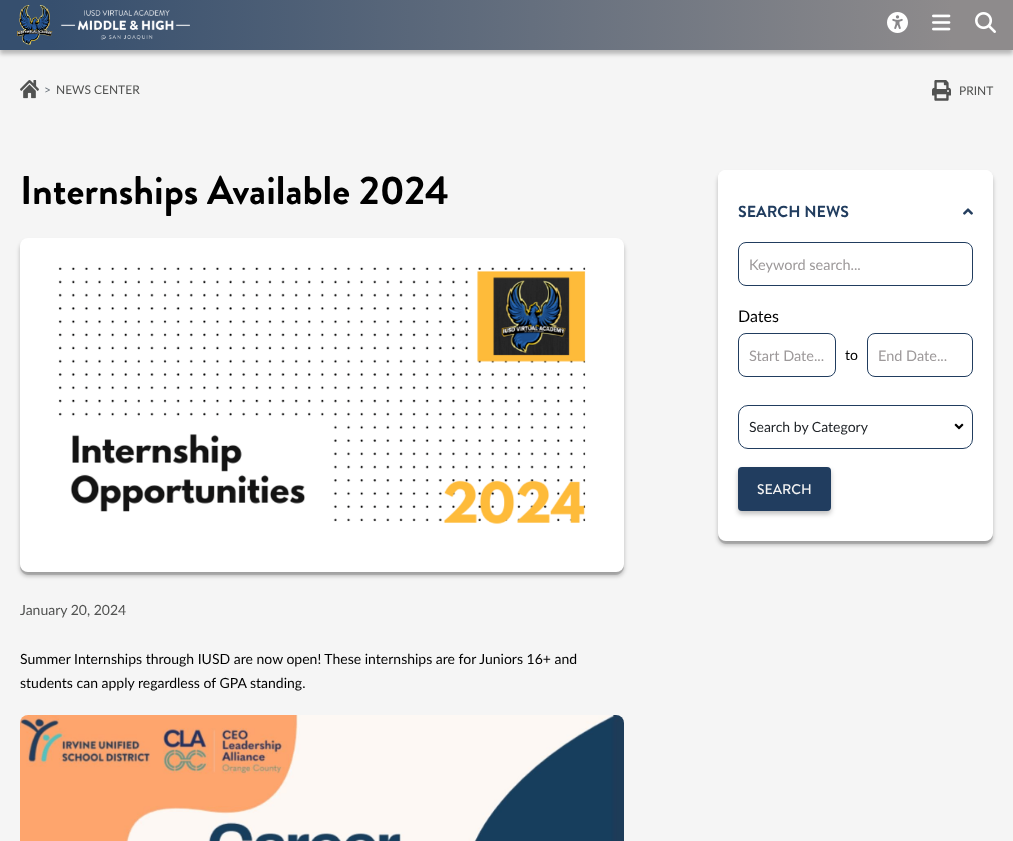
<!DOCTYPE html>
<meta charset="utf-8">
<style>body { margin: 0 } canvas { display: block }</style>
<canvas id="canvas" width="1013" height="841"></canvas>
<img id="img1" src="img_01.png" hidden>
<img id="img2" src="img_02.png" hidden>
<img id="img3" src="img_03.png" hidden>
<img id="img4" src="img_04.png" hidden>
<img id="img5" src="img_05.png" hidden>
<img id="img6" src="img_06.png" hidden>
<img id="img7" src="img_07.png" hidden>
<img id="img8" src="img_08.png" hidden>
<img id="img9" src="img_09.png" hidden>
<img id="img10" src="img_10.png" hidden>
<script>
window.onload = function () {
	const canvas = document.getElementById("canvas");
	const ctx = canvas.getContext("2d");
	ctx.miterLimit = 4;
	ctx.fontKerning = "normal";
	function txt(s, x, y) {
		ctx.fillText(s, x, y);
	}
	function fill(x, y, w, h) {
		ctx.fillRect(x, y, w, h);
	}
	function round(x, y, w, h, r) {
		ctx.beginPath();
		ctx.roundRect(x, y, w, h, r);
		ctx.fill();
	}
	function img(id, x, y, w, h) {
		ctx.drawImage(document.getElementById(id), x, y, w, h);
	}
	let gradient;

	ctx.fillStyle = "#F5F5F5";
	fill(0, 0, 1013, 841);
	ctx.fillStyle = "rgba(0, 0, 0, 0.25)";
	ctx.filter = "blur(2px)";
	ctx.beginPath();
	ctx.rect(0, 4, 1013, 50);
	ctx.fill();
	ctx.filter = "none";
	gradient = ctx.createLinearGradient(0, 25, 1013, 25);
	gradient.addColorStop(0.05, "#364F6E");
	gradient.addColorStop(0.94, "#8E8B8C");
	ctx.fillStyle = gradient;
	fill(0, 0, 1013, 50);
	img("img1", 17, 5, 173, 40);
	img("img2", 887, 12, 21, 21);
	img("img3", 932, 14, 19, 17);
	img("img4", 975, 12, 21, 21);
	img("img5", 20, 80, 19, 19);
	img("img6", 932, 80, 19, 21);
	ctx.fillStyle = "#D3D3D3";
	ctx.beginPath();
	ctx.moveTo(20, 564);
	ctx.lineTo(20, 567);
	ctx.bezierCurveTo(20, 571, 24, 575, 28, 575);
	ctx.lineTo(616, 575);
	ctx.bezierCurveTo(620, 575, 624, 571, 624, 567);
	ctx.lineTo(624, 564);
	ctx.bezierCurveTo(624, 568, 620, 572, 616, 572);
	ctx.lineTo(28, 572);
	ctx.bezierCurveTo(24, 572, 20, 568, 20, 564);
	ctx.closePath();
	ctx.fill();
	ctx.fillStyle = "rgba(0, 0, 0, 0.25)";
	ctx.filter = "blur(2px)";
	ctx.beginPath();
	ctx.roundRect(20, 242, 604, 334, 8);
	ctx.fill();
	ctx.filter = "none";
	img("img7", 20, 238, 604, 334);
	img("img8", 20, 715, 604, 126);
	ctx.fillStyle = "#D3D3D3";
	ctx.beginPath();
	ctx.moveTo(718, 533);
	ctx.lineTo(718, 536);
	ctx.bezierCurveTo(718, 540, 722, 544, 726, 544);
	ctx.lineTo(985, 544);
	ctx.bezierCurveTo(989, 544, 993, 540, 993, 536);
	ctx.lineTo(993, 533);
	ctx.bezierCurveTo(993, 537, 989, 541, 985, 541);
	ctx.lineTo(726, 541);
	ctx.bezierCurveTo(722, 541, 718, 537, 718, 533);
	ctx.closePath();
	ctx.fill();
	ctx.fillStyle = "rgba(0, 0, 0, 0.25)";
	ctx.filter = "blur(2px)";
	ctx.beginPath();
	ctx.roundRect(718, 174, 275, 371, 8);
	ctx.fill();
	ctx.filter = "none";
	ctx.fillStyle = "#FFFFFF";
	round(718, 170, 275, 371, 8);
	ctx.beginPath();
	ctx.roundRect(718, 170, 275, 72, [8, 8, 0, 0]);
	ctx.fill();
	img("img9", 963, 208, 10, 7);
	ctx.beginPath();
	ctx.roundRect(738.5, 242.5, 234, 43, 7.5);
	ctx.strokeStyle = "#213D5F";
	ctx.stroke();
	ctx.beginPath();
	ctx.roundRect(738.5, 333.5, 97, 43, 7.5);
	ctx.stroke();
	ctx.beginPath();
	ctx.roundRect(867.5, 333.5, 105, 43, 7.5);
	ctx.stroke();
	img("img10", 954, 423, 10, 7);
	ctx.beginPath();
	ctx.roundRect(738.5, 405.5, 234, 43, 9.5);
	ctx.stroke();
	ctx.fillStyle = "rgba(0, 0, 0, 0.25)";
	ctx.filter = "blur(2.5px)";
	ctx.beginPath();
	ctx.roundRect(738, 470, 93, 44, 4);
	ctx.fill();
	ctx.filter = "none";
	ctx.fillStyle = "#213D5F";
	round(738, 467, 93, 44, 4);
	ctx.font = "12px Lato";
	ctx.fillStyle = "#6C757D";
	txt(">", 44, 94);
	ctx.fillStyle = "#515251";
	txt("NEWS CENTER", 56, 94);
	txt("PRINT", 959, 95);
	ctx.font = "bold 40px Brandon Grotesque";
	ctx.fillStyle = "#000000";
	txt("Internships Available 2024", 20, 204);
	ctx.font = "14px Lato";
	ctx.fillStyle = "#515251";
	txt("January 20, 2024", 20, 615);
	ctx.fillStyle = "#000000";
	txt("Summer Internships through IUSD are now open! These internships are for Juniors 16+ and", 20, 664);
	txt("students can apply regardless of GPA standing.", 20, 688);
	ctx.font = "bold 16px Brandon Grotesque";
	ctx.fillStyle = "#213D5F";
	txt("SEARCH NEWS", 738, 217);
	ctx.font = "14.5px Lato";
	ctx.fillStyle = "#9D999A";
	txt("Keyword search...", 749, 270);
	ctx.font = "16px Lato";
	ctx.fillStyle = "#000000";
	txt("Dates", 738, 322);
	ctx.font = "14.5px Lato";
	ctx.fillStyle = "#9D999A";
	txt("Start Date...", 749, 361);
	ctx.font = "14px Lato";
	ctx.fillStyle = "#000000";
	txt("to", 845, 360);
	ctx.font = "14.5px Lato";
	ctx.fillStyle = "#9D999A";
	txt("End Date...", 878, 361);
	ctx.font = "14px Lato";
	ctx.fillStyle = "#212529";
	txt("Search by Category", 749, 432);
	ctx.font = "500 14px Brandon Grotesque";
	ctx.fillStyle = "#F2F2F2";
	txt("SEARCH", 757, 494);
};
</script>
